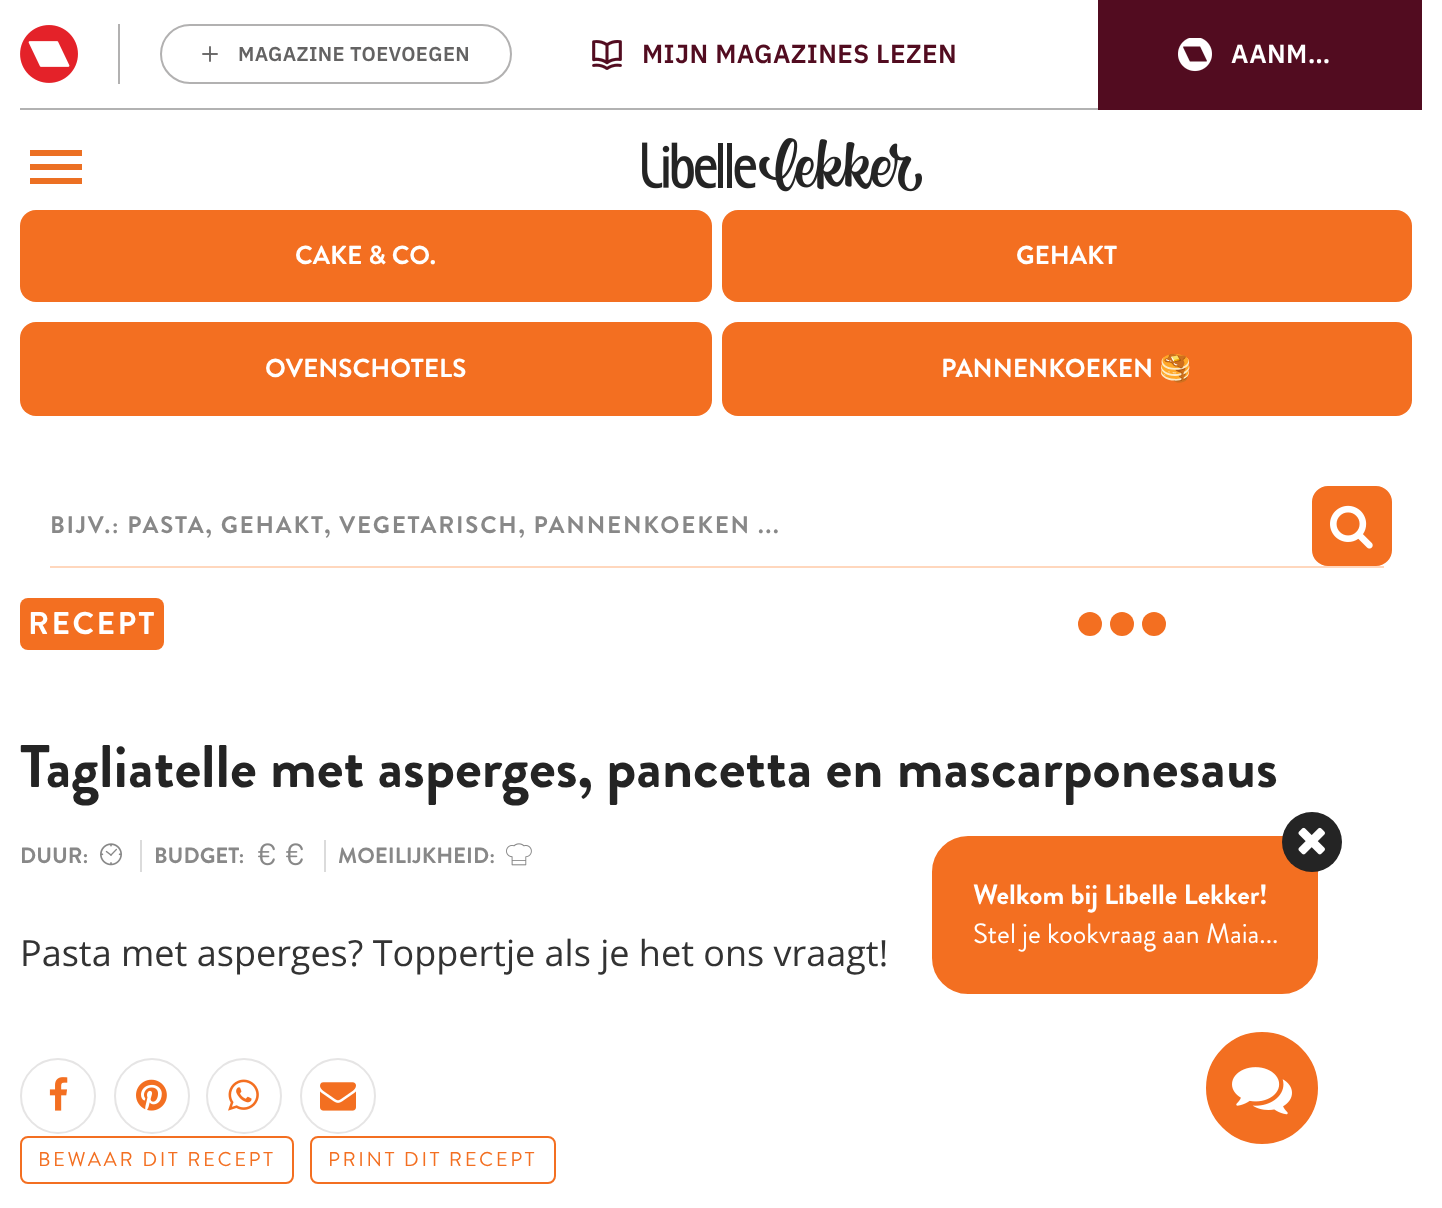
<!DOCTYPE html>
<meta charset="utf-8">
<style>body { margin: 0 } canvas { display: block }</style>
<canvas id="canvas" width="1442" height="1208"></canvas>
<img id="img1" src="img_01.png" hidden>
<img id="img2" src="img_02.png" hidden>
<img id="img3" src="img_03.png" hidden>
<img id="img4" src="img_04.png" hidden>
<img id="img5" src="img_05.png" hidden>
<img id="img6" src="img_06.png" hidden>
<img id="img7" src="img_07.png" hidden>
<img id="img8" src="img_08.png" hidden>
<img id="img9" src="img_09.png" hidden>
<img id="img10" src="img_10.png" hidden>
<img id="img11" src="img_11.png" hidden>
<img id="img12" src="img_12.png" hidden>
<img id="img13" src="img_13.png" hidden>
<img id="img14" src="img_14.png" hidden>
<img id="img15" src="img_15.png" hidden>
<script>
window.onload = function () {
	const canvas = document.getElementById("canvas");
	const ctx = canvas.getContext("2d");
	ctx.miterLimit = 4;
	ctx.fontKerning = "normal";
	function txt(s, x, y) {
		ctx.fillText(s, x, y);
	}
	function fill(x, y, w, h) {
		ctx.fillRect(x, y, w, h);
	}
	function round(x, y, w, h, r) {
		ctx.beginPath();
		ctx.roundRect(x, y, w, h, r);
		ctx.fill();
	}
	function img(id, x, y, w, h) {
		ctx.drawImage(document.getElementById(id), x, y, w, h);
	}

	ctx.fillStyle = "#FFFFFF";
	fill(0, 0, 1442, 1208);
	ctx.fillStyle = "#B2B2B2";
	fill(20, 108, 1078, 2);
	ctx.fillStyle = "#B2B1B1";
	fill(118, 24, 2, 60);
	img("img1", 20, 25, 58, 58);
	ctx.beginPath();
	ctx.roundRect(161, 25, 350, 58, 29);
	ctx.strokeStyle = "#B2B1B1";
	ctx.lineWidth = 2;
	ctx.stroke();
	img("img2", 202, 46, 16, 16);
	img("img3", 592, 40, 30, 30);
	ctx.fillStyle = "#520C20";
	fill(1098, 0, 324, 110);
	img("img4", 1178, 38, 34, 34);
	ctx.fillStyle = "#EC7023";
	ctx.beginPath();
	ctx.moveTo(30, 150);
	ctx.lineTo(82, 150);
	ctx.lineTo(82, 156);
	ctx.lineTo(30, 156);
	ctx.closePath();
	ctx.moveTo(30, 164);
	ctx.lineTo(82, 164);
	ctx.lineTo(82, 170);
	ctx.lineTo(30, 170);
	ctx.closePath();
	ctx.moveTo(30, 178);
	ctx.lineTo(82, 178);
	ctx.lineTo(82, 184);
	ctx.lineTo(30, 184);
	ctx.closePath();
	ctx.fill();
	img("img5", 642, 138, 280, 54);
	ctx.fillStyle = "#F36F21";
	round(20, 210, 692, 92, 16);
	round(722, 210, 690, 92, 16);
	round(20, 322, 692, 94, 16);
	round(722, 322, 690, 94, 16);
	ctx.fillStyle = "#FFD7BD";
	fill(50, 566, 1334, 2);
	ctx.fillStyle = "#F36F21";
	ctx.beginPath();
	ctx.roundRect(1313, 487, 78, 78, 15);
	ctx.fill();
	ctx.strokeStyle = "#F36F21";
	ctx.stroke();
	img("img6", 1330, 505, 43, 44);
	round(20, 598, 144, 52, 8);
	ctx.beginPath();
	ctx.arc(1090, 624, 12, 0, Math.PI * 2);
	ctx.fill();
	ctx.beginPath();
	ctx.arc(1122, 624, 12, 0, Math.PI * 2);
	ctx.fill();
	ctx.beginPath();
	ctx.arc(1154, 624, 12, 0, Math.PI * 2);
	ctx.fill();
	img("img7", 100, 843, 22, 23);
	ctx.fillStyle = "#DBDBDB";
	fill(140, 840, 2, 32);
	img("img8", 258, 843, 17, 23);
	img("img8", 286, 843, 17, 23);
	fill(324, 840, 2, 32);
	img("img9", 506, 843, 26, 23);
	ctx.beginPath();
	ctx.arc(58, 1096, 37, 0, Math.PI * 2);
	ctx.strokeStyle = "#E6E5E5";
	ctx.stroke();
	img("img10", 49, 1077, 19, 34);
	ctx.beginPath();
	ctx.arc(152, 1096, 37, 0, Math.PI * 2);
	ctx.stroke();
	img("img11", 136, 1079, 31, 32);
	ctx.beginPath();
	ctx.arc(244, 1096, 37, 0, Math.PI * 2);
	ctx.stroke();
	img("img12", 228, 1079, 31, 32);
	ctx.beginPath();
	ctx.arc(338, 1096, 37, 0, Math.PI * 2);
	ctx.stroke();
	img("img13", 320, 1082, 36, 29);
	ctx.beginPath();
	ctx.roundRect(21, 1137, 272, 46, 7);
	ctx.strokeStyle = "#F36F21";
	ctx.stroke();
	ctx.beginPath();
	ctx.roundRect(311, 1137, 244, 46, 7);
	ctx.stroke();
	ctx.fillStyle = "#F36F21";
	ctx.beginPath();
	ctx.roundRect(930, 834, 390, 162, 38);
	ctx.fill();
	ctx.strokeStyle = "#FFFFFF";
	ctx.lineWidth = 4;
	ctx.stroke();
	ctx.fillStyle = "#242424";
	ctx.beginPath();
	ctx.arc(1312, 842, 30, 0, Math.PI * 2);
	ctx.fill();
	img("img14", 1298, 827, 27, 28);
	ctx.fillStyle = "#F36F21";
	ctx.beginPath();
	ctx.arc(1262, 1088, 58, 0, Math.PI * 2);
	ctx.fill();
	ctx.stroke();
	img("img15", 1232, 1067, 60, 48);
	ctx.letterSpacing = "0.4px";
	ctx.font = "600 20px IBM Plex Sans";
	ctx.fillStyle = "#646363";
	txt("MAGAZINE TOEVOEGEN", 238, 61);
	ctx.font = "600 26px IBM Plex Sans";
	ctx.fillStyle = "#520C20";
	txt("MIJN MAGAZINES LEZEN", 642, 63);
	ctx.fillStyle = "#FFFFFF";
	txt("AANM…", 1231, 63);
	ctx.letterSpacing = "0px";
	ctx.font = "bold 26px Brandon Grotesque";
	txt("CAKE & CO.", 295, 264);
	txt("GEHAKT", 1016, 264);
	txt("OVENSCHOTELS", 265, 377);
	txt("PANNENKOEKEN", 941, 377);
	ctx.font = "bold 26px Noto Color Emoji";
	txt("🥞", 1159, 377);
	ctx.letterSpacing = "1.8px";
	ctx.font = "bold 24px Brandon Grotesque";
	ctx.fillStyle = "#888888";
	txt("BIJV.: PASTA, GEHAKT, VEGETARISCH, PANNENKOEKEN ...", 50, 533);
	ctx.letterSpacing = "2.5px";
	ctx.font = "bold 31.5px Brandon Grotesque";
	ctx.fillStyle = "#FFFFFF";
	txt("RECEPT", 28, 634);
	ctx.letterSpacing = "0px";
	ctx.font = "bold 60px Brandon Grotesque";
	ctx.fillStyle = "#242424";
	txt("Tagliatelle met asperges, pancetta en mascarponesaus", 20, 787);
	ctx.font = "bold 22px Brandon Grotesque";
	ctx.fillStyle = "#888888";
	txt("DUUR:", 20, 863);
	txt("BUDGET:", 154, 863);
	txt("MOEILIJKHEID:", 338, 863);
	ctx.font = "36px Open Sans";
	ctx.fillStyle = "#333333";
	txt("Pasta met asperges? Toppertje als je het ons vraagt!", 20, 966);
	ctx.letterSpacing = "2.6px";
	ctx.font = "20px Brandon Grotesque";
	ctx.fillStyle = "#F36F21";
	txt("BEWAAR DIT RECEPT", 38, 1166);
	txt("PRINT DIT RECEPT", 328, 1166);
	ctx.letterSpacing = "0px";
	ctx.font = "bold 28px Brandon Grotesque";
	ctx.fillStyle = "#FFFFFF";
	txt("Welkom bij Libelle Lekker!", 973, 904);
	ctx.font = "28px Brandon Grotesque";
	txt("Stel je kookvraag aan Maia...", 973, 943);
};
</script>
